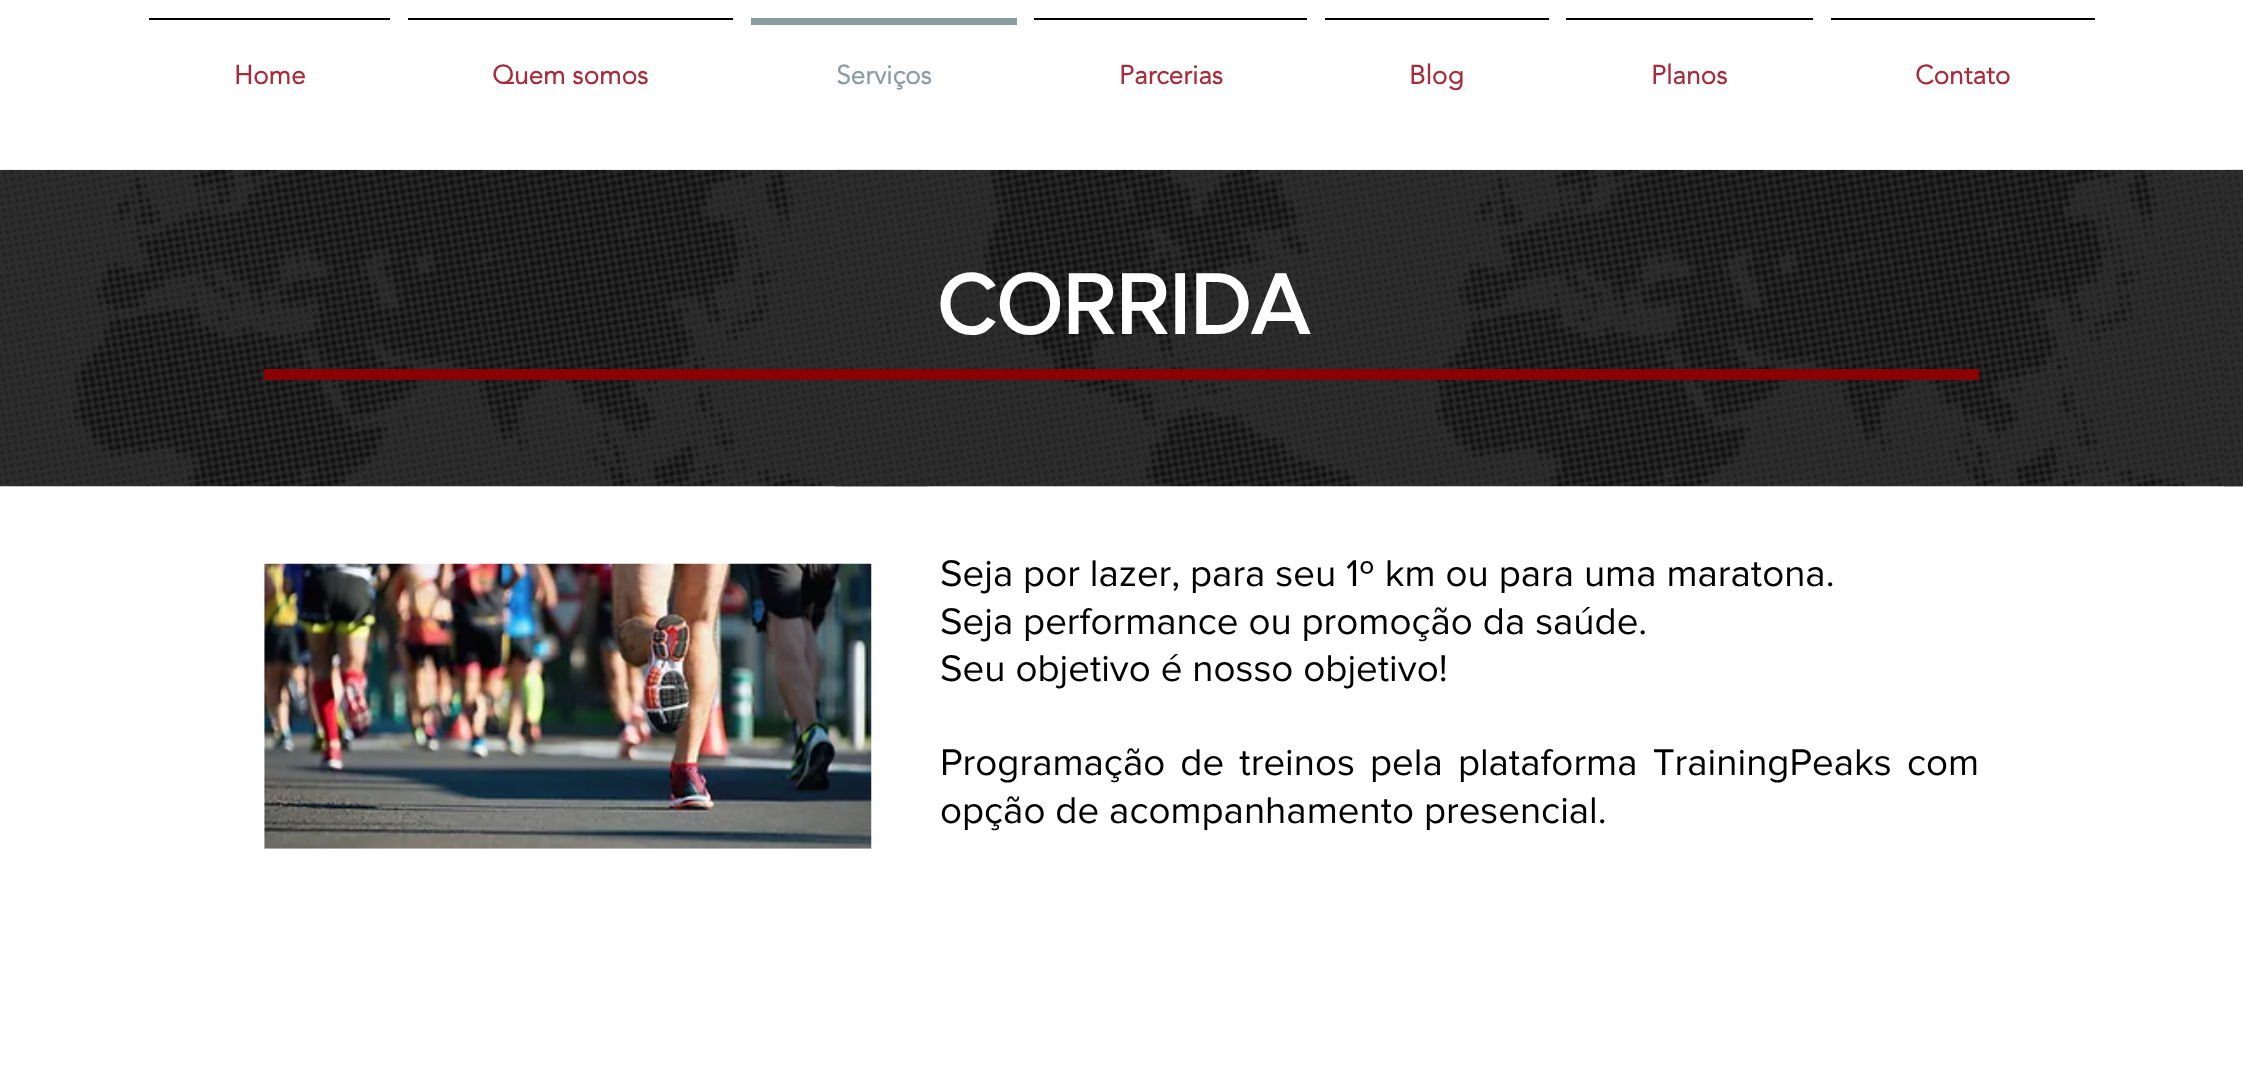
<!DOCTYPE html>
<meta charset="utf-8">
<style>body { margin: 0 } canvas { display: block }</style>
<canvas id="canvas" width="2243" height="1087"></canvas>
<img id="img1" src="img_01.png" hidden>
<img id="img2" src="img_02.png" hidden>
<img id="img3" src="img_03.png" hidden>
<img id="img4" src="img_04.png" hidden>
<script>
window.onload = function () {
	const canvas = document.getElementById("canvas");
	const ctx = canvas.getContext("2d");
	ctx.miterLimit = 4;
	ctx.fontKerning = "normal";
	function txt(s, x, y) {
		ctx.fillText(s, x, y);
	}
	function fill(x, y, w, h) {
		ctx.fillRect(x, y, w, h);
	}
	function img(id, x, y, w, h) {
		ctx.drawImage(document.getElementById(id), x, y, w, h);
	}

	ctx.fillStyle = "#FFFFFF";
	fill(0, 0, 2243, 1087);
	ctx.fillStyle = "#000000";
	fill(149, 18, 241, 2);
	fill(408, 18, 325, 2);
	ctx.fillStyle = "#899DA3";
	fill(751, 18, 266, 7);
	ctx.fillStyle = "#000000";
	fill(1034, 18, 273, 2);
	fill(1325, 18, 224, 2);
	fill(1566, 18, 247, 2);
	fill(1831, 18, 264, 2);
	img("img1", 0, 169, 928, 318);
	img("img2", 835, 169, 1408, 318);
	img("img3", 2224, 169, 19, 318);
	ctx.fillStyle = "#8B0000";
	fill(264, 369, 1715, 11);
	img("img4", 264, 563, 608, 286);
	ctx.font = "bold 26.25px 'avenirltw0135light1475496'";
	ctx.fillStyle = "#A62D3B";
	txt("Home", 234, 84);
	txt("Quem somos", 492, 84);
	ctx.fillStyle = "#899DA3";
	txt("Serviços", 836, 84);
	ctx.fillStyle = "#A62D3B";
	txt("Parcerias", 1119, 84);
	txt("Blog", 1409, 84);
	txt("Planos", 1651, 84);
	txt("Contato", 1915, 84);
	ctx.font = "bold 87.5px 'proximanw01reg'";
	ctx.fillStyle = "#FFFFFF";
	txt("CORRIDA", 936, 334);
	ctx.font = "38.5px 'proximanw01reg'";
	ctx.fillStyle = "#000000";
	txt("Seja por lazer, para seu 1º km ou para uma maratona.", 940, 586);
	txt("Seja performance ou promoção da saúde.", 940, 634);
	txt("Seu objetivo é nosso objetivo!", 940, 681);
	ctx.wordSpacing = "5.25px";
	txt("Programação de treinos pela plataforma TrainingPeaks com", 940, 775);
	ctx.wordSpacing = "0px";
	txt("opção de acompanhamento presencial.", 940, 823);
};
</script>
